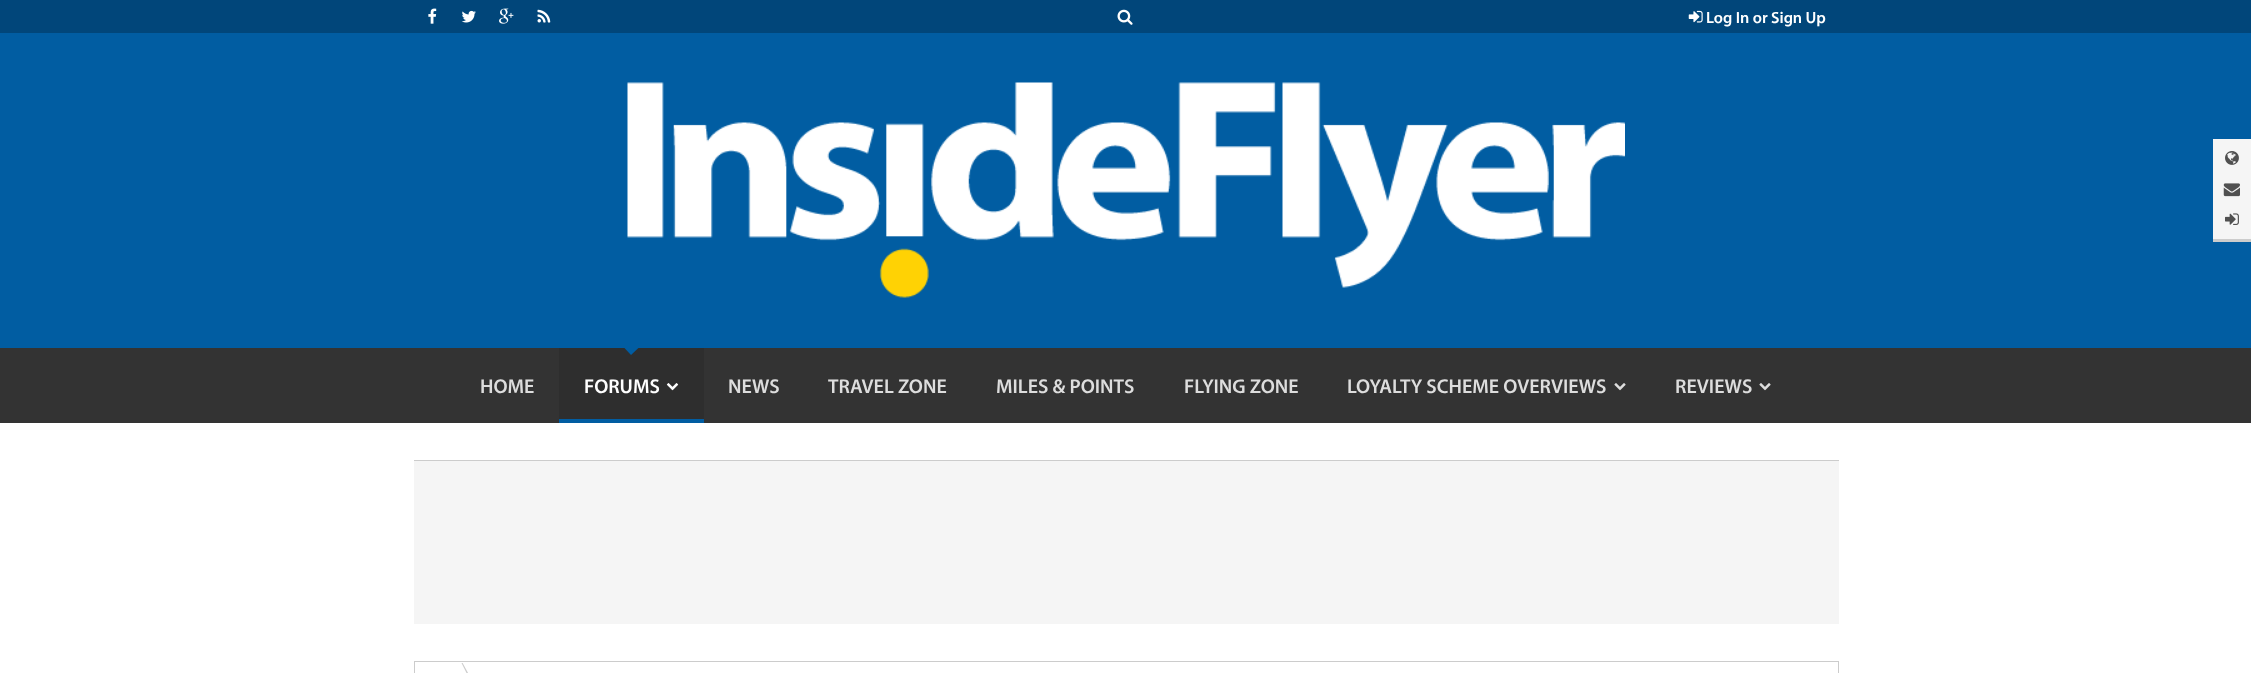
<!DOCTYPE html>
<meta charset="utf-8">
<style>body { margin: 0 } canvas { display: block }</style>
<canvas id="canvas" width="2251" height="673"></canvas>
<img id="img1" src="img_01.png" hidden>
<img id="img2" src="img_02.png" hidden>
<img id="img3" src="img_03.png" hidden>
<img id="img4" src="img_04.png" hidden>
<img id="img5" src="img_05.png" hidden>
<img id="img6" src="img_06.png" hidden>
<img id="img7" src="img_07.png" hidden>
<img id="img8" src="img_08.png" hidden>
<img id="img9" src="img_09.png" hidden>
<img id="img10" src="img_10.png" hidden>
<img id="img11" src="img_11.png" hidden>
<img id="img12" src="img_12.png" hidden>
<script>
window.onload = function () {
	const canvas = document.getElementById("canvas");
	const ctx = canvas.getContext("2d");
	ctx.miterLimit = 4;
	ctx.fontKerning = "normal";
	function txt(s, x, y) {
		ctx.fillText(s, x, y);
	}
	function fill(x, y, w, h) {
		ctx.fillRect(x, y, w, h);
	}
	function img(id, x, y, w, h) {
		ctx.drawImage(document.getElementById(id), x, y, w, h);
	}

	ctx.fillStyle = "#FFFFFF";
	fill(0, 0, 2251, 673);
	ctx.fillStyle = "#015DA2";
	fill(0, 33, 2251, 315);
	ctx.fillStyle = "#01467A";
	fill(0, 0, 2251, 33);
	img("img1", 428, 8, 9, 16);
	img("img2", 461, 10, 15, 13);
	img("img3", 499, 8, 15, 16);
	img("img4", 537, 9, 14, 14);
	img("img5", 1117, 9, 16, 16);
	img("img6", 1688, 10, 15, 13);
	img("img7", 627, 82, 998, 216);
	ctx.fillStyle = "#F5F5F5";
	fill(2213, 139, 38, 100);
	ctx.fillStyle = "#CCCCCC";
	fill(2213, 239, 38, 3);
	img("img8", 2225, 151, 14, 14);
	img("img9", 2223, 183, 17, 14);
	img("img10", 2225, 213, 14, 12);
	ctx.fillStyle = "#333333";
	fill(0, 348, 2251, 75);
	ctx.fillStyle = "#2E2E2E";
	fill(559, 348, 145, 71);
	ctx.save();
	ctx.beginPath();
	ctx.rect(559, 348, 145, 75);
	ctx.clip();
	ctx.fillStyle = "#015DA2";
	ctx.beginPath();
	ctx.moveTo(624, 347.5);
	ctx.lineTo(639, 347.5);
	ctx.lineTo(631, 355);
	ctx.closePath();
	ctx.fill();
	ctx.restore();
	img("img11", 666, 383, 13, 8);
	ctx.fillStyle = "#015DA2";
	fill(559, 419, 145, 4);
	img("img12", 1614, 383, 12, 8);
	img("img12", 1759, 383, 12, 8);
	ctx.fillStyle = "#F5F5F5";
	fill(414, 461, 1425, 163);
	ctx.fillStyle = "#CCCCCC";
	fill(414, 460, 1425, 1);
	ctx.strokeStyle = "#CCCCCC";
	ctx.strokeRect(414.5, 661.5, 1424, 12);
	ctx.save();
	ctx.beginPath();
	ctx.rect(415, 663, 1423, 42);
	ctx.clip();
	ctx.beginPath();
	ctx.moveTo(461, 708);
	ctx.lineTo(461, 660);
	ctx.lineTo(474, 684);
	ctx.closePath();
	ctx.fill();
	ctx.fillStyle = "#FFFFFF";
	ctx.beginPath();
	ctx.moveTo(460, 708);
	ctx.lineTo(460, 660);
	ctx.lineTo(472, 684);
	ctx.closePath();
	ctx.fill();
	ctx.restore();
	ctx.font = "600 16.25px Myriad";
	ctx.fillStyle = "#FFFFFF";
	txt("Log In or Sign Up", 1706, 23);
	ctx.font = "600 20px Myriad";
	ctx.fillStyle = "#DDDDDD";
	txt("HOME", 480, 393);
	ctx.fillStyle = "#FFFFFF";
	txt("FORUMS", 584, 393);
	ctx.fillStyle = "#DDDDDD";
	txt("NEWS", 728, 393);
	txt("TRAVEL ZONE", 828, 393);
	txt("MILES & POINTS", 996, 393);
	txt("FLYING ZONE", 1184, 393);
	txt("LOYALTY SCHEME OVERVIEWS", 1347, 393);
	txt("REVIEWS", 1675, 393);
};
</script>
